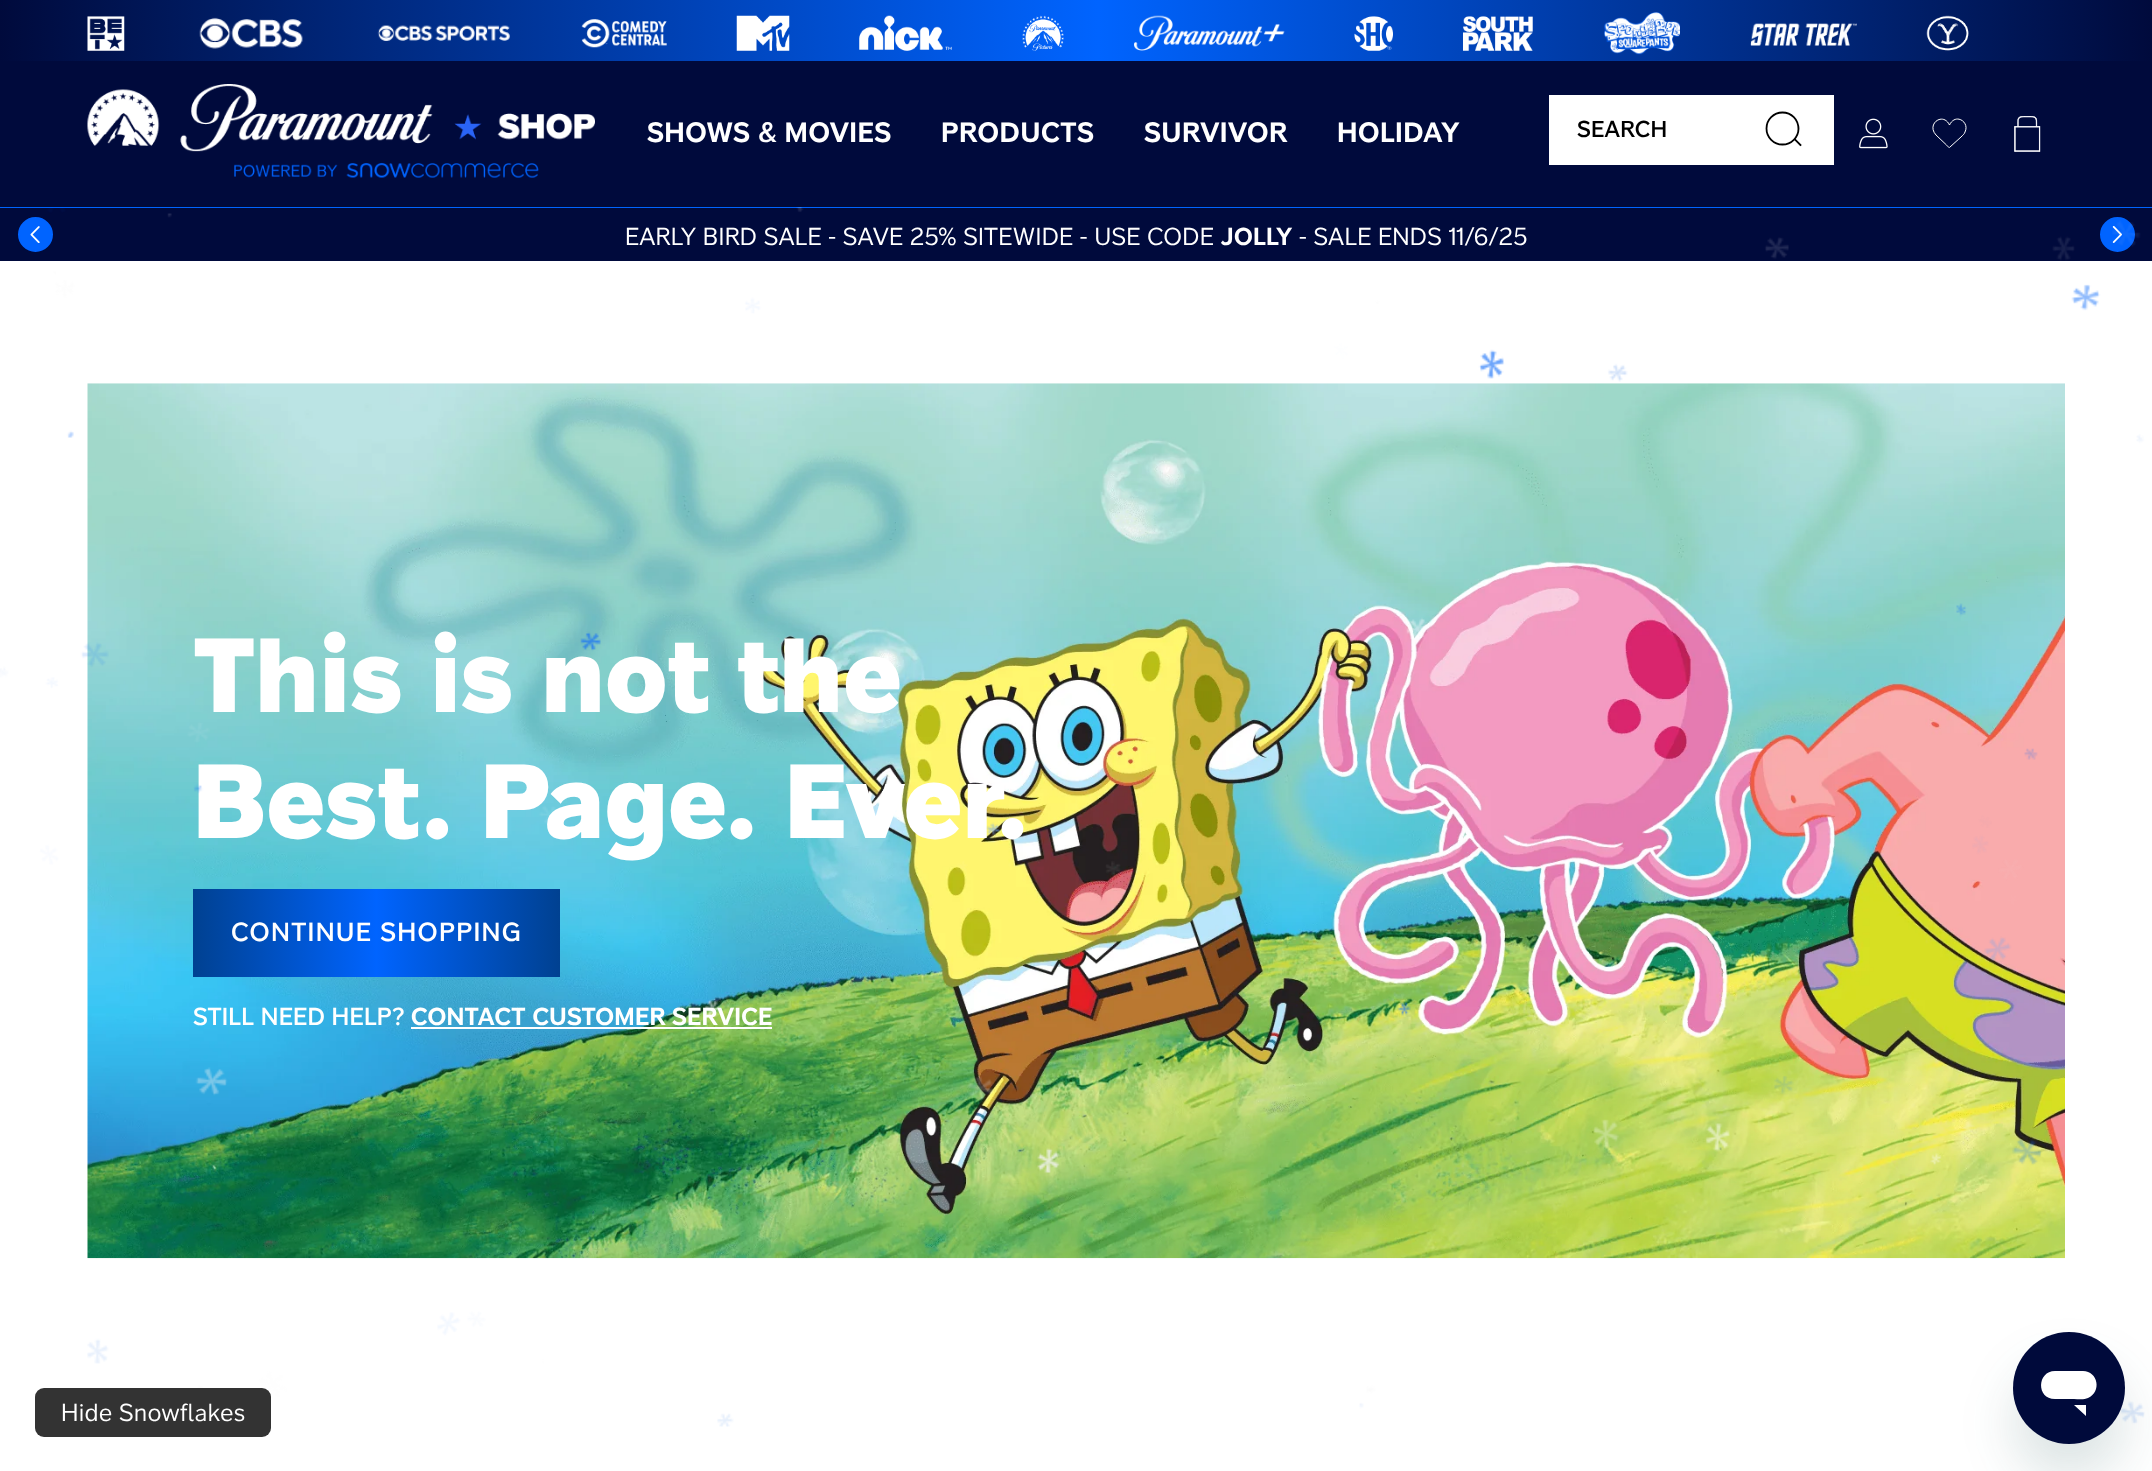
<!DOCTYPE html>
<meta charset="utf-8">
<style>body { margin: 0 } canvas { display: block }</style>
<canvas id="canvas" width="2152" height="1471"></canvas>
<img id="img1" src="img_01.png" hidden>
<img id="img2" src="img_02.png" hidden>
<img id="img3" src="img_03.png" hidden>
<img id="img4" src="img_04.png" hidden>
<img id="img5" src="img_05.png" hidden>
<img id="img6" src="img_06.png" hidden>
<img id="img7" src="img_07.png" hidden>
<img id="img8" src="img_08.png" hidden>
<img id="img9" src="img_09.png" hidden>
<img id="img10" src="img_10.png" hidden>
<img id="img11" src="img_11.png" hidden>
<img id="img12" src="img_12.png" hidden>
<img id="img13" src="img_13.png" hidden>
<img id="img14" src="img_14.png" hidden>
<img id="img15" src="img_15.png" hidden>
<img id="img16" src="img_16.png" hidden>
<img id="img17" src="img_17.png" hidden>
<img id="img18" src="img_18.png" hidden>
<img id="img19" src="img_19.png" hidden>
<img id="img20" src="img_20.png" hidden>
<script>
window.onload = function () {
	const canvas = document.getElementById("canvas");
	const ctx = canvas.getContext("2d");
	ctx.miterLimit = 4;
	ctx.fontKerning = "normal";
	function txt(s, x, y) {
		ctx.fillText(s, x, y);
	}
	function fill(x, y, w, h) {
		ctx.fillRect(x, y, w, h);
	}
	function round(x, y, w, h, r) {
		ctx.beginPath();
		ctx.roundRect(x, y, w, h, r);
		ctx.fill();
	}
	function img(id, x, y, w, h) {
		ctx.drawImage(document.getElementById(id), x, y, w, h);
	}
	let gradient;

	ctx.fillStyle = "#FFFFFF";
	fill(0, 0, 2152, 1471);
	gradient = ctx.createLinearGradient(0, 33, 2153, 33);
	gradient.addColorStop(0, "#000A3C");
	gradient.addColorStop(0.51, "#0064FF");
	gradient.addColorStop(1, "#000A3C");
	ctx.fillStyle = gradient;
	fill(0, 0, 2152, 61);
	img("img1", 87, 16, 38, 35);
	img("img2", 199, 17, 104, 32);
	img("img3", 377, 25, 133, 16);
	img("img4", 581, 19, 86, 29);
	img("img5", 736, 15, 54, 36);
	img("img6", 859, 15, 93, 36);
	img("img7", 1022, 15, 42, 36);
	img("img8", 1134, 15, 151, 36);
	img("img9", 1354, 16, 39, 35);
	img("img10", 1463, 16, 70, 35);
	img("img11", 1604, 12, 76, 43);
	img("img12", 1750, 23, 107, 23);
	img("img13", 1926, 15, 43, 36);
	ctx.fillStyle = "#000A3C";
	fill(0, 61, 2152, 144);
	ctx.fillStyle = "#010B39";
	fill(0, 205, 2152, 2);
	img("img14", 87, 84, 508, 94);
	ctx.fillStyle = "#FFFFFF";
	fill(1549, 95, 285, 70);
	ctx.beginPath();
	ctx.moveTo(1800.5, 145);
	ctx.lineTo(1795, 139.5);
	ctx.strokeStyle = "#000000";
	ctx.lineWidth = 1.8;
	ctx.lineCap = "square";
	ctx.stroke();
	ctx.beginPath();
	ctx.arc(1782.5, 128.5, 16, 0, Math.PI * 2);
	ctx.stroke();
	img("img15", 1859, 118, 29, 31);
	ctx.beginPath();
	ctx.moveTo(1936, 135);
	ctx.lineTo(1946.5, 145);
	ctx.bezierCurveTo(1947.5, 146, 1949, 148.5, 1950, 147);
	ctx.lineTo(1961, 137);
	ctx.bezierCurveTo(1962.5, 135.5, 1964.5, 134, 1965, 132);
	ctx.bezierCurveTo(1970, 122, 1955.5, 112.5, 1949.5, 125);
	ctx.bezierCurveTo(1943, 111.5, 1926, 124, 1936, 135);
	ctx.closePath();
	ctx.strokeStyle = "#FFFFFF";
	ctx.lineWidth = 1;
	ctx.lineCap = "butt";
	ctx.stroke();
	img("img16", 2014, 116, 27, 36);
	ctx.fillStyle = "#0064FF";
	fill(0, 207, 2152, 1);
	ctx.fillStyle = "#000A3C";
	fill(0, 208, 2152, 53);
	ctx.fillStyle = "#0064FF";
	ctx.beginPath();
	ctx.arc(35.5, 234.5, 16.5, 0, Math.PI * 2);
	ctx.fill();
	ctx.strokeStyle = "#0064FF";
	ctx.lineWidth = 2;
	ctx.stroke();
	img("img17", 30, 226, 10, 17);
	ctx.beginPath();
	ctx.arc(2117.5, 234.5, 16.5, 0, Math.PI * 2);
	ctx.fill();
	ctx.stroke();
	img("img18", 2112, 226, 10, 17);
	img("img19", 87, 383, 1978, 876);
	gradient = ctx.createLinearGradient(193, 933, 560, 933);
	gradient.addColorStop(0, "#004191");
	gradient.addColorStop(0.5, "#0064FF");
	gradient.addColorStop(1, "#004191");
	ctx.fillStyle = gradient;
	fill(193, 889, 367, 88);
	ctx.fillStyle = "#FFFFFF";
	fill(411, 1027, 361, 2);
	ctx.letterSpacing = "0.5px";
	ctx.font = "bold 28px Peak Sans";
	txt("SHOWS & MOVIES", 647, 142);
	txt("PRODUCTS", 941, 142);
	txt("SURVIVOR", 1144, 142);
	txt("HOLIDAY", 1337, 142);
	ctx.letterSpacing = "0.25px";
	ctx.font = "600 23px Peak Sans";
	ctx.fillStyle = "#000000";
	txt("SEARCH", 1577, 137);
	ctx.font = "24.5px Peak Sans";
	ctx.fillStyle = "#FFFFFF";
	txt("EARLY BIRD SALE - SAVE 25% SITEWIDE - USE CODE", 625, 245);
	ctx.font = "bold 24.5px Peak Sans";
	txt("JOLLY", 1221, 245);
	ctx.font = "24.5px Peak Sans";
	txt("- SALE ENDS 11/6/25", 1299, 245);
	ctx.letterSpacing = "1px";
	ctx.font = "900 105px Peak Sans";
	txt("This is not the", 193, 712);
	txt("Best. Page. Ever.", 193, 838);
	ctx.letterSpacing = "1.3px";
	ctx.font = "600 26.25px Peak Sans";
	txt("CONTINUE SHOPPING", 231, 941);
	ctx.letterSpacing = "0.25px";
	ctx.font = "600 24.5px Peak Sans";
	txt("STILL NEED HELP?", 193, 1025);
	ctx.font = "bold 24.5px Peak Sans";
	txt("CONTACT CUSTOMER SERVICE", 411, 1025);
	img("img20", 0, 207, 2145, 1220);
	ctx.fillStyle = "#333333";
	round(35, 1388, 236, 49, 9);
	ctx.font = "24.5px Peak Sans";
	ctx.fillStyle = "#FFFFFF";
	txt("Hide Snowflakes", 61, 1421);
	ctx.fillStyle = "rgba(23, 73, 77, 0.15)";
	ctx.filter = "blur(26px)";
	ctx.beginPath();
	ctx.roundRect(2013, 1367, 112, 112, 56);
	ctx.fill();
	ctx.filter = "none";
	ctx.fillStyle = "#000A3B";
	ctx.beginPath();
	ctx.arc(2069, 1388, 56, 0, Math.PI * 2);
	ctx.fill();
	ctx.fillStyle = "#FFFFFF";
	ctx.beginPath();
	ctx.moveTo(2074, 1405);
	ctx.lineTo(2086, 1416);
	ctx.lineTo(2086, 1405);
	ctx.closePath();
	ctx.moveTo(2055, 1371);
	ctx.bezierCurveTo(2037, 1371, 2036, 1399, 2055, 1399);
	ctx.lineTo(2074, 1399);
	ctx.bezierCurveTo(2078, 1399, 2084, 1400, 2088, 1398);
	ctx.bezierCurveTo(2102, 1392, 2098, 1371, 2083, 1371);
	ctx.closePath();
	ctx.fill();
};
</script>
